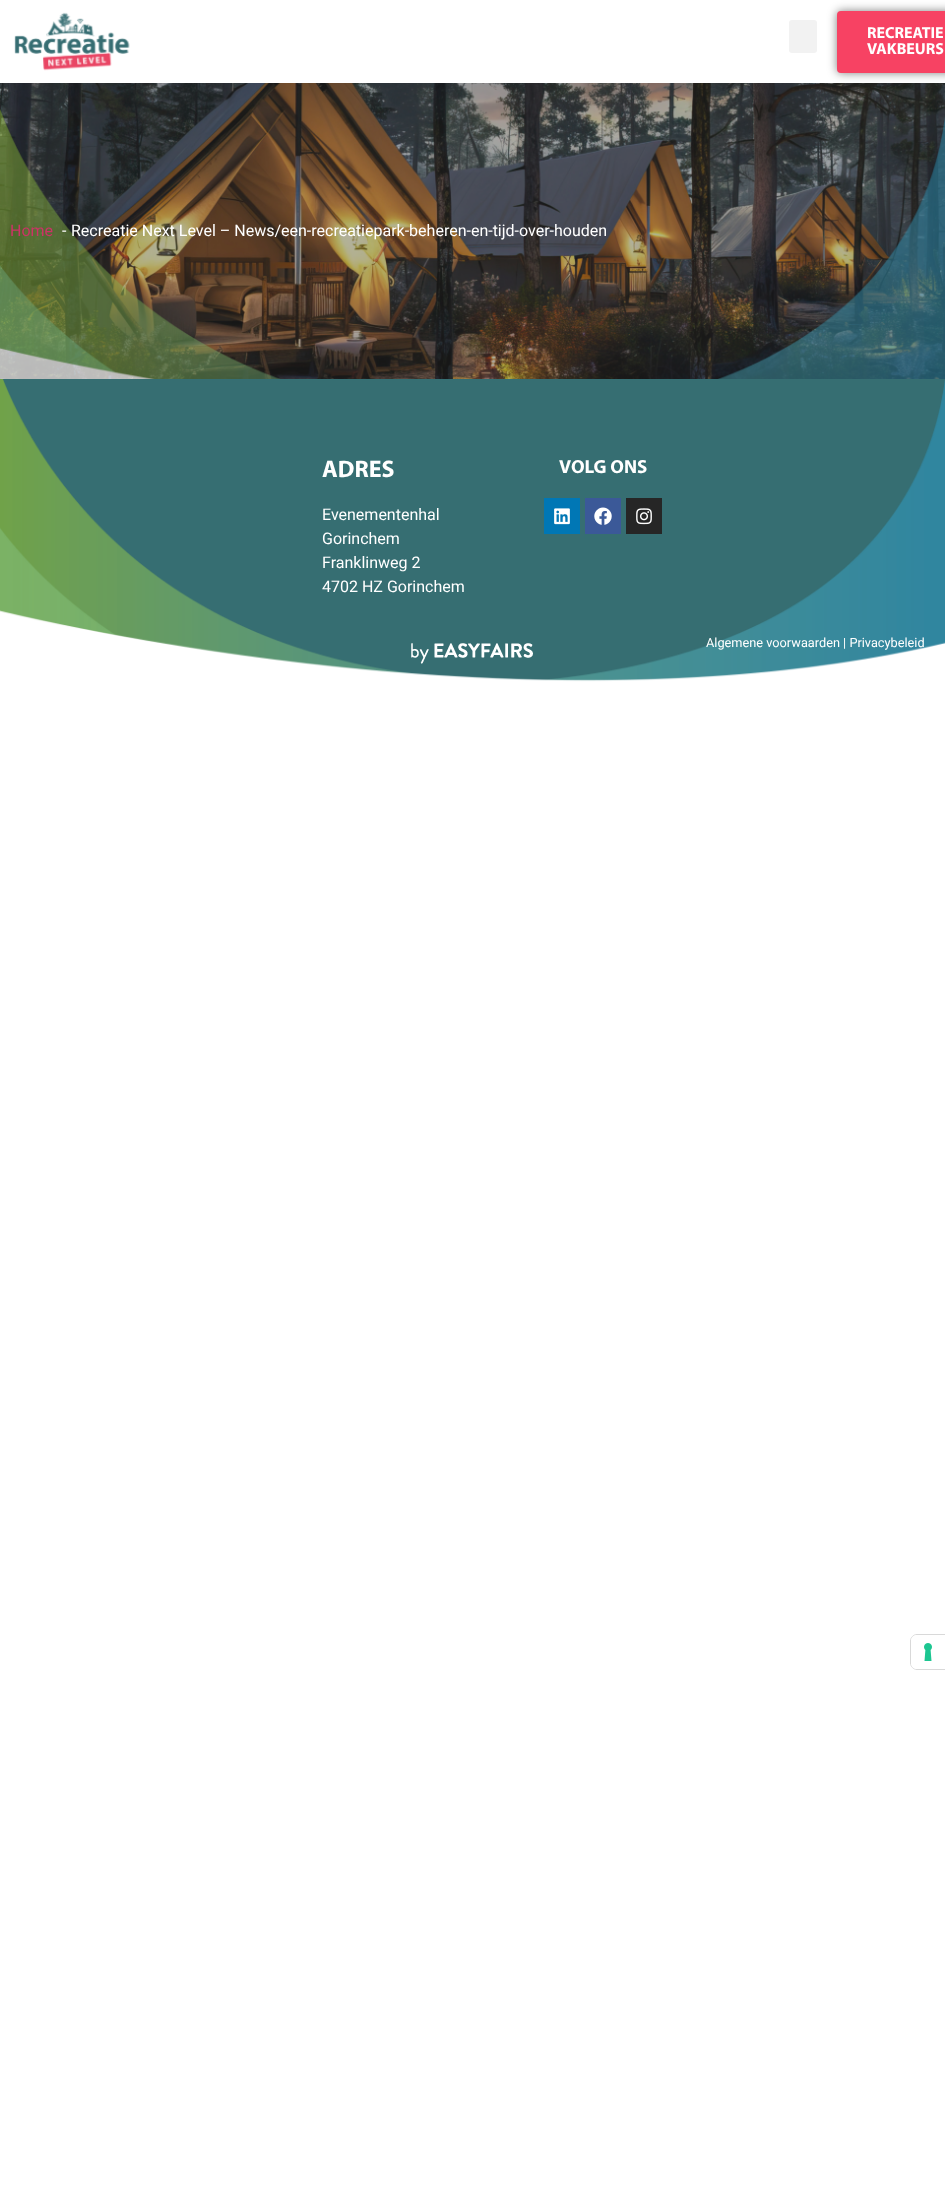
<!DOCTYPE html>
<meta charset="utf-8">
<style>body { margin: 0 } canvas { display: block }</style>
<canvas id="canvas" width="945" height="2203"></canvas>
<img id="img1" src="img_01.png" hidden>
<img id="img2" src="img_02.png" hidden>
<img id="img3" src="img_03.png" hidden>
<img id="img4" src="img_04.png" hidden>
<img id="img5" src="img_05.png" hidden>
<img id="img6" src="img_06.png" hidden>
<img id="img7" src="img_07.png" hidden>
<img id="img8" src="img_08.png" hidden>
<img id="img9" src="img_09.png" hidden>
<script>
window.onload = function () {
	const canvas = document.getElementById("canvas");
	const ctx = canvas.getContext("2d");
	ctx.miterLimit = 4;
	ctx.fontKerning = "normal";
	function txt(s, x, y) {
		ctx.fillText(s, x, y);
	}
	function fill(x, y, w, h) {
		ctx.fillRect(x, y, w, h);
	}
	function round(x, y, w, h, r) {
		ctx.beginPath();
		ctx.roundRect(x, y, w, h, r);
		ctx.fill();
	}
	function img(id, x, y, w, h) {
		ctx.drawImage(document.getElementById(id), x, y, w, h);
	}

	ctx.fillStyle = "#FFFFFF";
	fill(0, 0, 945, 2203);
	img("img1", 14, 12, 116, 59);
	ctx.fillStyle = "#F2F2F2";
	round(789, 20, 28, 33, 3);
	img("img2", 0, 83, 945, 296);
	ctx.fillStyle = "rgba(0, 0, 0, 0.5)";
	ctx.filter = "blur(5px)";
	ctx.beginPath();
	ctx.roundRect(837, 11, 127, 62, 4);
	ctx.fill();
	ctx.filter = "none";
	ctx.fillStyle = "#F74263";
	round(837, 11, 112, 62, 4);
	img("img3", 0, 109, 945, 270);
	ctx.fillStyle = "#366E72";
	fill(0, 379, 945, 303);
	img("img4", 0, 379, 945, 308);
	ctx.fillStyle = "#0077B5";
	fill(544, 498, 36, 36);
	img("img5", 554, 508, 16, 17);
	ctx.fillStyle = "#3B5998";
	fill(585, 498, 36, 36);
	img("img6", 594, 507, 18, 18);
	ctx.fillStyle = "#262626";
	fill(626, 498, 36, 36);
	img("img7", 636, 508, 16, 17);
	img("img8", 411, 643, 122, 21);
	ctx.beginPath();
	ctx.moveTo(917, 1634.5);
	ctx.lineTo(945.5, 1634.5);
	ctx.lineTo(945.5, 1669.5);
	ctx.lineTo(917, 1669.5);
	ctx.bezierCurveTo(913.5, 1669.5, 910.5, 1666.5, 910.5, 1663);
	ctx.lineTo(910.5, 1641);
	ctx.bezierCurveTo(910.5, 1637.5, 913.5, 1634.5, 917, 1634.5);
	ctx.closePath();
	ctx.strokeStyle = "#D9D9D9";
	ctx.stroke();
	ctx.fillStyle = "#FFFFFF";
	ctx.beginPath();
	ctx.roundRect(911, 1635, 34, 34, [6, 0, 0, 6]);
	ctx.fill();
	img("img9", 924, 1643, 8, 18);
	ctx.font = "bold 16px Myriad";
	txt("RECREATIE", 867, 38);
	txt("VAKBEURS", 867, 54);
	ctx.font = "16px Roboto";
	ctx.fillStyle = "#CC3366";
	txt("Home", 10, 236);
	ctx.fillStyle = "#FFFFFF";
	txt("-", 62, 236);
	txt("Recreatie Next Level – News/een-recreatiepark-beheren-en-tijd-over-houden", 71, 236);
	ctx.font = "bold 24px Myriad";
	txt("ADRES", 322, 477);
	ctx.font = "16px Roboto";
	txt("Evenementenhal", 322, 520);
	txt("Gorinchem", 322, 544);
	txt("Franklinweg 2", 322, 568);
	txt("4702 HZ Gorinchem", 322, 592);
	ctx.font = "bold 19px Myriad";
	txt("VOLG ONS", 559, 473);
	ctx.font = "12.75px Roboto";
	txt("Algemene voorwaarden | Privacybeleid", 706, 647);
};
</script>
